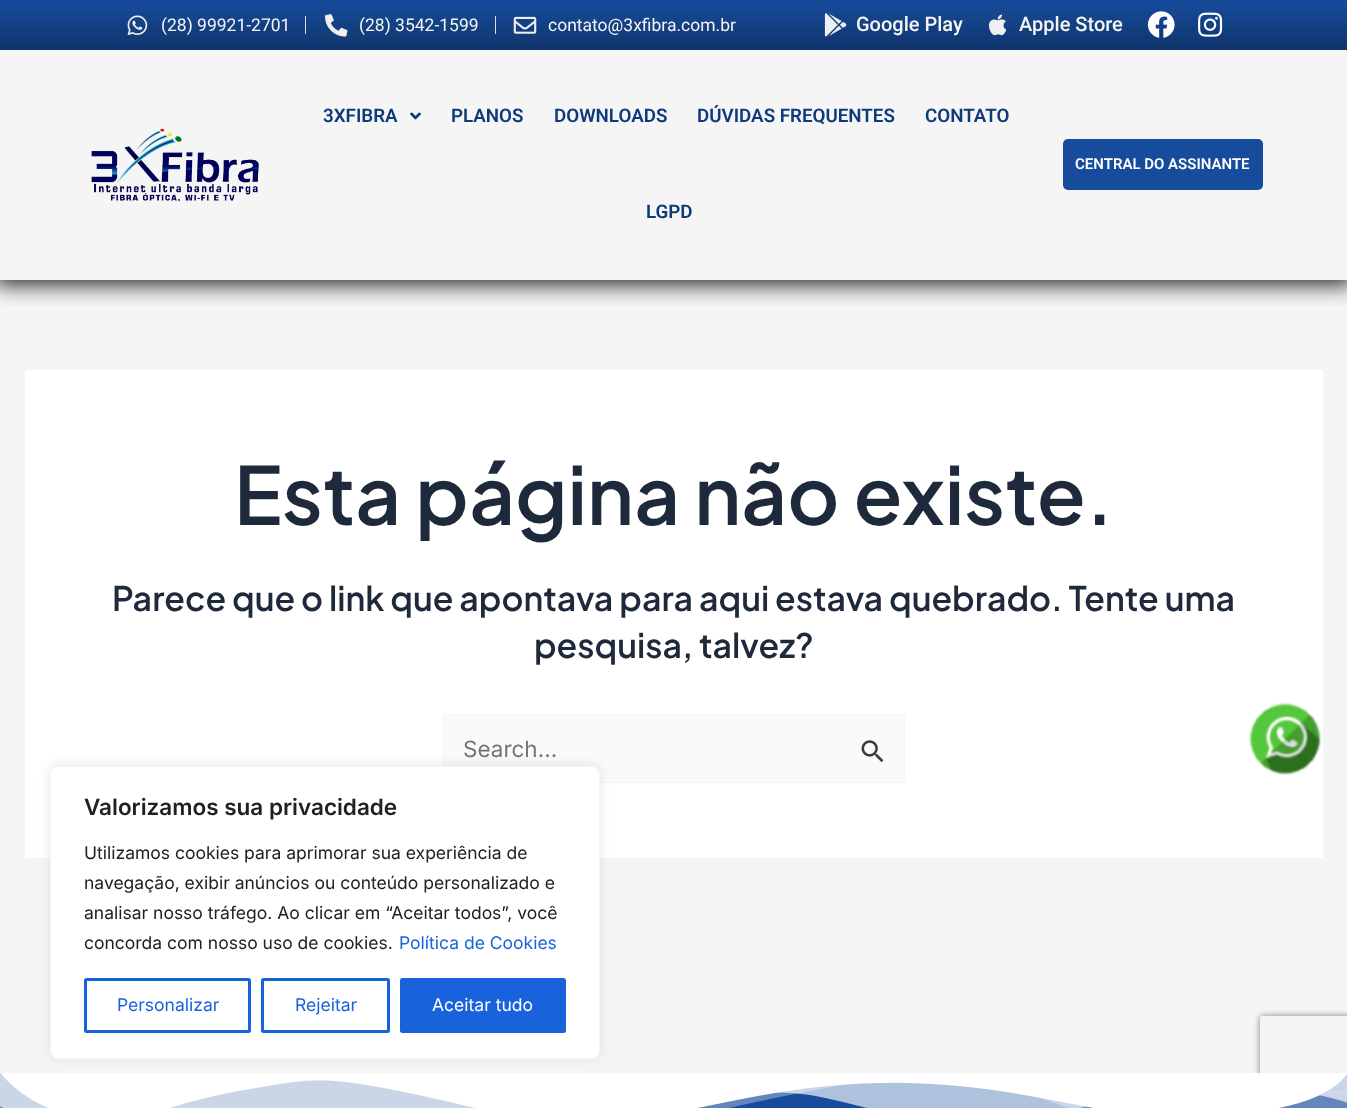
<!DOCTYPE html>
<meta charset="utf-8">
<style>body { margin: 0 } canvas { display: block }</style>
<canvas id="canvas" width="1347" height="1108"></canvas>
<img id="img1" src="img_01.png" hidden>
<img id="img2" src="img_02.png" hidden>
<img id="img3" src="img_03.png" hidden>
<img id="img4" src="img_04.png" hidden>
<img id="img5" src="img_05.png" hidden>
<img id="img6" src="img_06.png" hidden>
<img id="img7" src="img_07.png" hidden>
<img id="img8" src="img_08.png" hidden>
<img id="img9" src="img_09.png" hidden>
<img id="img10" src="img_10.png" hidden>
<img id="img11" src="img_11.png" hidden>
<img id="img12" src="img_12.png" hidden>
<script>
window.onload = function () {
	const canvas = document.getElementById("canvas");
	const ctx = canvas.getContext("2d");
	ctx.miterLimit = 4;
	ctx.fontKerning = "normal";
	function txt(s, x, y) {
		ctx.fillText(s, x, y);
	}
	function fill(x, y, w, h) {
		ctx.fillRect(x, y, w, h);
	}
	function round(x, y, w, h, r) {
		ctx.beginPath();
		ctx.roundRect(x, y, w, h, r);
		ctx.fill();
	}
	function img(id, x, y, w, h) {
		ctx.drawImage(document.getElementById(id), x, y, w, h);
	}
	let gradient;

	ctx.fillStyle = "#F5F5F5";
	fill(0, 0, 1347, 1108);
	ctx.save();
	ctx.beginPath();
	ctx.rect(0, 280, 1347, 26);
	ctx.clip();
	ctx.fillStyle = "rgba(0, 0, 0, 0.84)";
	ctx.filter = "blur(10.5px)";
	ctx.beginPath();
	ctx.rect(-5, 45, 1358, 240);
	ctx.fill();
	ctx.filter = "none";
	ctx.restore();
	gradient = ctx.createLinearGradient(674, 0, 674, 50);
	gradient.addColorStop(0, "#174C9C");
	gradient.addColorStop(1, "#0F346B");
	ctx.fillStyle = gradient;
	fill(0, 0, 1347, 50);
	img("img1", 127, 15, 21, 21);
	ctx.fillStyle = "#DDDDDD";
	fill(305, 16, 1, 18);
	img("img2", 325, 14, 23, 23);
	fill(495, 16, 1, 18);
	img("img3", 513, 16, 24, 18);
	img("img4", 824, 13, 23, 24);
	img("img5", 988, 14, 19, 22);
	img("img6", 1147, 11, 28, 27);
	img("img7", 1198, 12, 25, 25);
	img("img8", 91, 128, 168, 74);
	img("img9", 410, 112, 11, 8);
	ctx.fillStyle = "#174C9C";
	round(1063, 139, 200, 51, 5);
	ctx.fillStyle = "#FFFFFF";
	fill(25, 370, 1298, 488);
	ctx.fillStyle = "#FAFAFA";
	ctx.beginPath();
	ctx.roundRect(443.5, 714.5, 461, 68, 2);
	ctx.fill();
	ctx.strokeStyle = "#F2F5F7";
	ctx.stroke();
	img("img10", 861, 740, 23, 23);
	img("img11", 1248, 702, 74, 74);
	ctx.fillStyle = "#174C9C";
	fill(0, 1073, 1347, 35);
	ctx.save();
	ctx.beginPath();
	ctx.moveTo(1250, 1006);
	ctx.lineTo(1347, 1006);
	ctx.lineTo(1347, 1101);
	ctx.lineTo(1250, 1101);
	ctx.closePath();
	ctx.moveTo(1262.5, 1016);
	ctx.lineTo(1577.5, 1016);
	ctx.bezierCurveTo(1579, 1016, 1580, 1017, 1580, 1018.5);
	ctx.lineTo(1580, 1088.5);
	ctx.bezierCurveTo(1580, 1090, 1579, 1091, 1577.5, 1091);
	ctx.lineTo(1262.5, 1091);
	ctx.bezierCurveTo(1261, 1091, 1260, 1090, 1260, 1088.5);
	ctx.lineTo(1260, 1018.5);
	ctx.bezierCurveTo(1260, 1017, 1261, 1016, 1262.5, 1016);
	ctx.closePath();
	ctx.clip("evenodd");
	ctx.fillStyle = "#808080";
	ctx.filter = "blur(3px)";
	ctx.beginPath();
	ctx.roundRect(1260, 1016, 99, 75, 2.5);
	ctx.fill();
	ctx.filter = "none";
	ctx.restore();
	img("img12", 0, 1073, 1347, 35);
	ctx.fillStyle = "rgba(172, 171, 171, 0.3)";
	ctx.filter = "blur(6px)";
	ctx.beginPath();
	ctx.roundRect(50, 765, 550, 293, 8);
	ctx.fill();
	ctx.filter = "none";
	ctx.fillStyle = "#FFFFFF";
	ctx.beginPath();
	ctx.roundRect(50.5, 766.5, 549, 292, 7.5);
	ctx.fill();
	ctx.strokeStyle = "#F4F4F4";
	ctx.stroke();
	ctx.beginPath();
	ctx.roundRect(85.5, 979.5, 164, 52, 1);
	ctx.strokeStyle = "#1863DC";
	ctx.lineWidth = 3;
	ctx.stroke();
	ctx.beginPath();
	ctx.roundRect(262.5, 979.5, 126, 52, 1);
	ctx.stroke();
	ctx.fillStyle = "#1863DC";
	ctx.beginPath();
	ctx.roundRect(401.5, 979.5, 163, 52, 1);
	ctx.fill();
	ctx.stroke();
	ctx.font = "17.5px Roboto";
	ctx.fillStyle = "#F5F5F5";
	txt("(28) 99921-2701", 161, 31);
	txt("(28) 3542-1599", 359, 31);
	txt("contato@3xfibra.com.br", 548, 31);
	ctx.font = "500 20px Roboto";
	txt("Google Play", 856, 31);
	txt("Apple Store", 1019, 31);
	ctx.font = "600 18.75px Roboto";
	ctx.fillStyle = "#0E3A7C";
	txt("3XFIBRA", 323, 122);
	txt("PLANOS", 451, 122);
	txt("DOWNLOADS", 554, 122);
	txt("DÚVIDAS FREQUENTES", 697, 122);
	txt("CONTATO", 925, 122);
	txt("LGPD", 646, 218);
	ctx.font = "600 15px Roboto";
	ctx.fillStyle = "#FFFFFF";
	txt("CENTRAL DO ASSINANTE", 1075, 169);
	ctx.font = "600 80px Plus Jakarta Sans";
	ctx.fillStyle = "#1E293B";
	txt("Esta página não existe.", 234, 525);
	ctx.font = "600 33.75px Plus Jakarta Sans";
	txt("Parece que o link que apontava para aqui estava quebrado. Tente uma", 112, 611);
	txt("pesquisa, talvez?", 534, 658);
	ctx.font = "22.5px Inter";
	ctx.fillStyle = "#757575";
	txt("Search...", 463, 757);
	ctx.font = "600 22.5px Inter";
	ctx.fillStyle = "#212121";
	txt("Valorizamos sua privacidade", 84, 815);
	ctx.font = "17.5px Inter";
	txt("Utilizamos cookies para aprimorar sua experiência de", 84, 859);
	txt("navegação, exibir anúncios ou conteúdo personalizado e", 84, 889);
	txt("analisar nosso tráfego. Ao clicar em “Aceitar todos”, você", 84, 919);
	txt("concorda com nosso uso de cookies.", 84, 949);
	ctx.fillStyle = "#1863DC";
	txt("Política de Cookies", 399, 949);
	txt("Personalizar", 117, 1011);
	txt("Rejeitar", 295, 1011);
	ctx.fillStyle = "#FFFFFF";
	txt("Aceitar tudo", 432, 1011);
};
</script>
